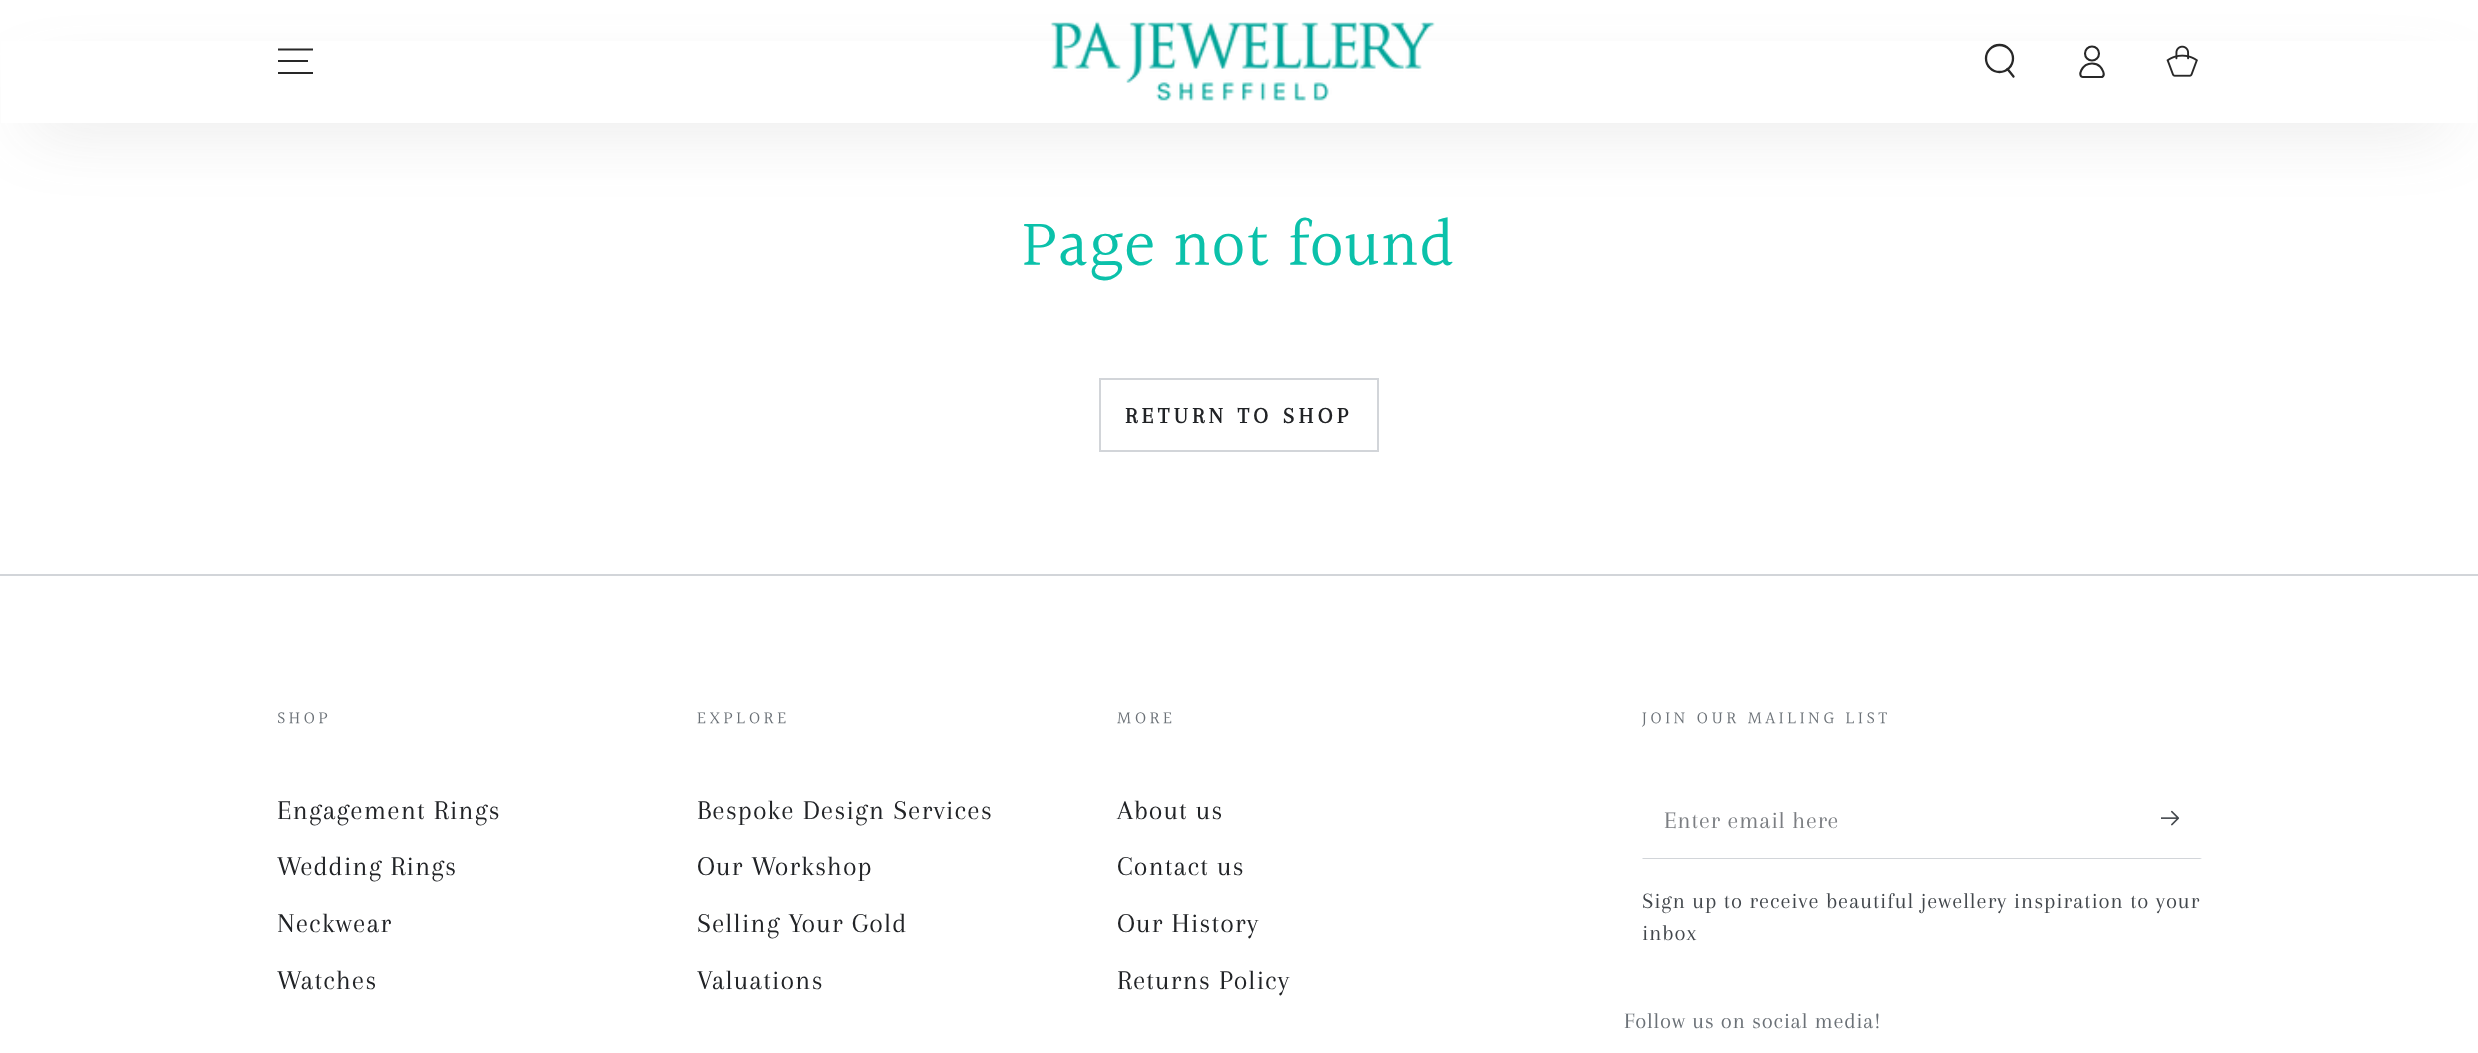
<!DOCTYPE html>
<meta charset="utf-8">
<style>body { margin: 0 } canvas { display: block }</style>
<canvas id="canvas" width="2478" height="1053"></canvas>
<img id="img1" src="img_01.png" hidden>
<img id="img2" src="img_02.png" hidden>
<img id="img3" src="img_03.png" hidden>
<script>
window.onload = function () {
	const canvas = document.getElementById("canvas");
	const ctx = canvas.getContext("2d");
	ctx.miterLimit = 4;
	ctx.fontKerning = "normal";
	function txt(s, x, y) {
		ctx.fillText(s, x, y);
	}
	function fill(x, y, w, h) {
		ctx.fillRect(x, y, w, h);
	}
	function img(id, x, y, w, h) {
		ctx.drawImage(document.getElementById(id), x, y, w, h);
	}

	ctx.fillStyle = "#FFFFFF";
	fill(0, 0, 2478, 1053);
	ctx.fillStyle = "rgba(91, 91, 91, 0.2)";
	ctx.filter = "blur(35px)";
	ctx.beginPath();
	ctx.roundRect(26, 88, 2426, 35, 17.5);
	ctx.fill();
	ctx.filter = "none";
	ctx.fillStyle = "#FFFFFF";
	fill(1, 41, 2476, 82);
	img("img1", 1050, 21, 385, 80);
	ctx.beginPath();
	ctx.moveTo(278, 73);
	ctx.lineTo(313, 73);
	ctx.moveTo(278, 61);
	ctx.lineTo(308, 61);
	ctx.moveTo(278, 49.5);
	ctx.lineTo(313, 49.5);
	ctx.strokeStyle = "#282828";
	ctx.lineWidth = 2;
	ctx.stroke();
	ctx.beginPath();
	ctx.arc(1999.5, 58.5, 13.5, 0, Math.PI * 2);
	ctx.lineWidth = 2.3;
	ctx.stroke();
	ctx.beginPath();
	ctx.moveTo(2007.5, 69);
	ctx.lineTo(2013.5, 76.5);
	ctx.lineCap = "round";
	ctx.stroke();
	ctx.beginPath();
	ctx.moveTo(2092, 63.5);
	ctx.bezierCurveTo(2081.5, 63.5, 2077, 77, 2083, 77);
	ctx.lineTo(2102, 77);
	ctx.bezierCurveTo(2106, 75, 2102, 68.5, 2100, 66.5);
	ctx.bezierCurveTo(2098, 64.5, 2095, 63.5, 2092, 63.5);
	ctx.closePath();
	ctx.lineWidth = 2.1;
	ctx.lineCap = "butt";
	ctx.stroke();
	ctx.beginPath();
	ctx.arc(2092, 53.5, 7, 0, Math.PI * 2);
	ctx.stroke();
	img("img2", 2166, 45, 32, 32);
	ctx.strokeStyle = "#D2D5D9";
	ctx.lineWidth = 2;
	ctx.strokeRect(1100, 379, 278, 72);
	ctx.fillStyle = "#D2D5D9";
	fill(0, 574, 2478, 2);
	ctx.beginPath();
	ctx.moveTo(2202, 859);
	ctx.lineTo(1642, 859);
	ctx.lineTo(1643, 858);
	ctx.lineTo(2200, 858);
	ctx.closePath();
	ctx.fill();
	img("img3", 2161, 810, 19, 16);
	ctx.letterSpacing = "1px";
	ctx.font = "66.5px Halant";
	ctx.fillStyle = "#0BC1AA";
	txt("Page not found", 1022, 268);
	ctx.letterSpacing = "4.5px";
	ctx.font = "bold 22.75px Arapey";
	ctx.fillStyle = "#212326";
	txt("RETURN TO SHOP", 1125, 423);
	ctx.letterSpacing = "3.5px";
	ctx.font = "17.5px Halant";
	ctx.fillStyle = "#6B7177";
	txt("SHOP", 277, 724);
	ctx.letterSpacing = "1.05px";
	ctx.font = "28px Arapey";
	ctx.fillStyle = "#212326";
	txt("Engagement Rings", 277, 819);
	txt("Wedding Rings", 277, 875);
	txt("Neckwear", 277, 932);
	txt("Watches", 277, 989);
	ctx.letterSpacing = "3.5px";
	ctx.font = "17.5px Halant";
	ctx.fillStyle = "#6B7177";
	txt("EXPLORE", 697, 724);
	ctx.letterSpacing = "1.05px";
	ctx.font = "28px Arapey";
	ctx.fillStyle = "#212326";
	txt("Bespoke Design Services", 697, 819);
	txt("Our Workshop", 697, 875);
	txt("Selling Your Gold", 697, 932);
	txt("Valuations", 697, 989);
	ctx.letterSpacing = "3.5px";
	ctx.font = "17.5px Halant";
	ctx.fillStyle = "#6B7177";
	txt("MORE", 1117, 724);
	ctx.letterSpacing = "1.05px";
	ctx.font = "28px Arapey";
	ctx.fillStyle = "#212326";
	txt("About us", 1117, 819);
	txt("Contact us", 1117, 875);
	txt("Our History", 1117, 932);
	txt("Returns Policy", 1117, 989);
	ctx.letterSpacing = "3.5px";
	ctx.font = "17.5px Halant";
	ctx.fillStyle = "#6B7177";
	txt("JOIN OUR MAILING LIST", 1642, 724);
	ctx.letterSpacing = "0.7px";
	ctx.font = "24.5px Arapey";
	ctx.fillStyle = "#7B7E82";
	txt("Enter email here", 1664, 828);
	ctx.letterSpacing = "0.88px";
	ctx.font = "22.75px Arapey";
	ctx.fillStyle = "#42474C";
	txt("Sign up to receive beautiful jewellery inspiration to your", 1642, 908);
	txt("inbox", 1642, 940);
	ctx.letterSpacing = "0.7px";
	ctx.fillStyle = "#6B7177";
	txt("Follow us on social media!", 1624, 1028);
};
</script>
